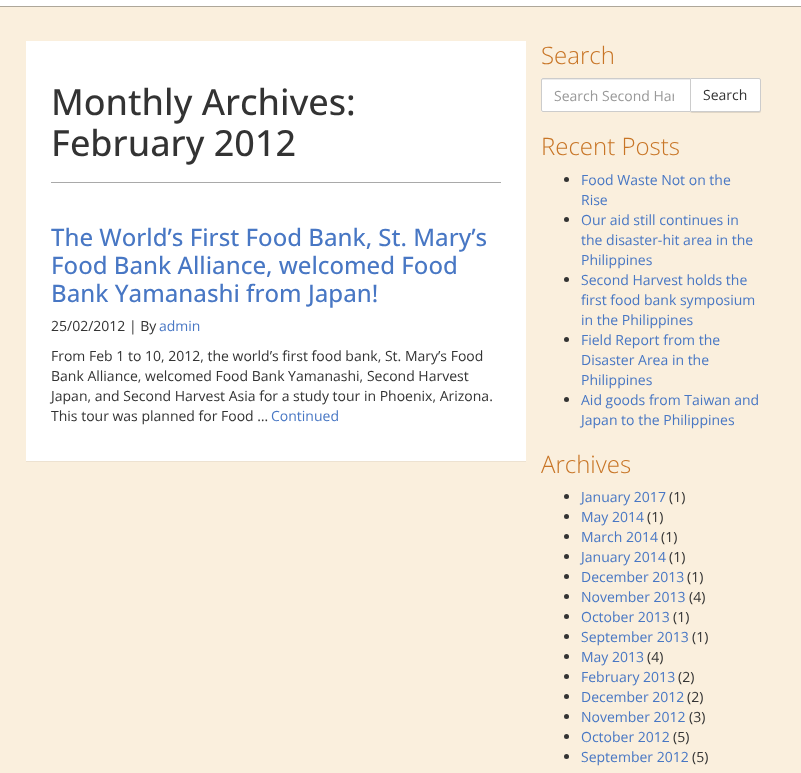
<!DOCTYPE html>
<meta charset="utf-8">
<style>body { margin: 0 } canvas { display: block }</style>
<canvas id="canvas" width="801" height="773"></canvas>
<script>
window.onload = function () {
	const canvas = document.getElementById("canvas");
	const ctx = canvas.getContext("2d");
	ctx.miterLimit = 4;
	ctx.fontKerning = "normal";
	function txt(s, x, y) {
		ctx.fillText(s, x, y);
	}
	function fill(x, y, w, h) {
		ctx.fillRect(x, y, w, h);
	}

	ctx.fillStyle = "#FAEFDD";
	fill(0, 0, 801, 773);
	ctx.fillStyle = "rgba(0, 0, 0, 0.3)";
	ctx.filter = "blur(0.5px)";
	ctx.beginPath();
	ctx.rect(0, -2, 801, 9);
	ctx.fill();
	ctx.filter = "none";
	ctx.fillStyle = "#FFFFFF";
	fill(0, 0, 801, 6);
	ctx.fillStyle = "rgba(0, 0, 0, 0.05)";
	ctx.filter = "blur(0.5px)";
	ctx.beginPath();
	ctx.rect(26, 42, 500, 420);
	ctx.fill();
	ctx.filter = "none";
	ctx.fillStyle = "#FFFFFF";
	fill(26, 41, 500, 420);
	ctx.fillStyle = "#A9A9A9";
	fill(51, 182, 450, 1);
	ctx.fillStyle = "rgba(0, 0, 0, 0.1)";
	ctx.filter = "blur(0.5px)";
	ctx.beginPath();
	ctx.roundRect(690, 79, 71, 34, 2);
	ctx.fill();
	ctx.filter = "none";
	ctx.fillStyle = "#FFFFFF";
	ctx.beginPath();
	ctx.roundRect(690.5, 78.5, 70, 33, [0, 1.5, 1.5, 0]);
	ctx.fill();
	ctx.strokeStyle = "#CCCCCC";
	ctx.stroke();
	ctx.beginPath();
	ctx.roundRect(541, 78, 150, 34, [2, 0, 0, 2]);
	ctx.fill();
	ctx.fillStyle = "#ECECEC";
	ctx.beginPath();
	ctx.moveTo(543, 80);
	ctx.lineTo(690, 80);
	ctx.lineTo(690, 79);
	ctx.lineTo(542, 79);
	ctx.lineTo(542, 81);
	ctx.bezierCurveTo(542, 80, 542, 80, 543, 80);
	ctx.closePath();
	ctx.fill();
	ctx.beginPath();
	ctx.roundRect(541.5, 78.5, 149, 33, [1.5, 0, 0, 1.5]);
	ctx.stroke();
	ctx.fillStyle = "#333333";
	ctx.beginPath();
	ctx.arc(566.5, 179.5, 2.5, 0, Math.PI * 2);
	ctx.fill();
	ctx.beginPath();
	ctx.arc(566.5, 219.5, 2.5, 0, Math.PI * 2);
	ctx.fill();
	ctx.beginPath();
	ctx.arc(566.5, 279.5, 2.5, 0, Math.PI * 2);
	ctx.fill();
	ctx.beginPath();
	ctx.arc(566.5, 339.5, 2.5, 0, Math.PI * 2);
	ctx.fill();
	ctx.beginPath();
	ctx.arc(566.5, 399.5, 2.5, 0, Math.PI * 2);
	ctx.fill();
	ctx.beginPath();
	ctx.arc(566.5, 496.5, 2.5, 0, Math.PI * 2);
	ctx.fill();
	ctx.beginPath();
	ctx.arc(566.5, 516.5, 2.5, 0, Math.PI * 2);
	ctx.fill();
	ctx.beginPath();
	ctx.arc(566.5, 536.5, 2.5, 0, Math.PI * 2);
	ctx.fill();
	ctx.beginPath();
	ctx.arc(566.5, 556.5, 2.5, 0, Math.PI * 2);
	ctx.fill();
	ctx.beginPath();
	ctx.arc(566.5, 576.5, 2.5, 0, Math.PI * 2);
	ctx.fill();
	ctx.beginPath();
	ctx.arc(566.5, 596.5, 2.5, 0, Math.PI * 2);
	ctx.fill();
	ctx.beginPath();
	ctx.arc(566.5, 616.5, 2.5, 0, Math.PI * 2);
	ctx.fill();
	ctx.beginPath();
	ctx.arc(566.5, 636.5, 2.5, 0, Math.PI * 2);
	ctx.fill();
	ctx.beginPath();
	ctx.arc(566.5, 656.5, 2.5, 0, Math.PI * 2);
	ctx.fill();
	ctx.beginPath();
	ctx.arc(566.5, 676.5, 2.5, 0, Math.PI * 2);
	ctx.fill();
	ctx.beginPath();
	ctx.arc(566.5, 696.5, 2.5, 0, Math.PI * 2);
	ctx.fill();
	ctx.beginPath();
	ctx.arc(566.5, 716.5, 2.5, 0, Math.PI * 2);
	ctx.fill();
	ctx.beginPath();
	ctx.arc(566.5, 736.5, 2.5, 0, Math.PI * 2);
	ctx.fill();
	ctx.beginPath();
	ctx.arc(566.5, 756.5, 2.5, 0, Math.PI * 2);
	ctx.fill();
	ctx.font = "500 36px Open Sans";
	txt("Monthly Archives:", 51, 115);
	txt("February 2012", 51, 156);
	ctx.font = "500 24px Open Sans";
	ctx.fillStyle = "#4877C4";
	txt("The World’s First Food Bank, St. Mary’s", 51, 246);
	txt("Food Bank Alliance, welcomed Food", 51, 274);
	txt("Bank Yamanashi from Japan!", 51, 302);
	ctx.font = "14px Open Sans";
	ctx.fillStyle = "#333333";
	txt("25/02/2012 | By", 51, 331);
	ctx.fillStyle = "#4877C4";
	txt("admin", 159, 331);
	ctx.fillStyle = "#333333";
	txt("From Feb 1 to 10, 2012, the world’s first food bank, St. Mary’s Food", 51, 361);
	txt("Bank Alliance, welcomed Food Bank Yamanashi, Second Harvest", 51, 381);
	txt("Japan, and Second Harvest Asia for a study tour in Phoenix, Arizona.", 51, 401);
	txt("This tour was planned for Food …", 51, 421);
	ctx.fillStyle = "#4877C4";
	txt("Continued", 271, 421);
	ctx.font = "300 24px Open Sans";
	ctx.fillStyle = "#C87526";
	txt("Search", 541, 64);
	ctx.save();
	ctx.beginPath();
	ctx.rect(554, 86, 120, 19);
	ctx.clip();
	ctx.font = "14px Open Sans";
	ctx.fillStyle = "#999999";
	txt("Search Second Har", 554, 101);
	ctx.restore();
	ctx.font = "14px Open Sans";
	ctx.fillStyle = "#333333";
	txt("Search", 703, 100);
	ctx.font = "300 24px Open Sans";
	ctx.fillStyle = "#C87526";
	txt("Recent Posts", 541, 155);
	ctx.font = "14px Open Sans";
	ctx.fillStyle = "#4877C4";
	txt("Food Waste Not on the", 581, 185);
	txt("Rise", 581, 205);
	txt("Our aid still continues in", 581, 225);
	txt("the disaster-hit area in the", 581, 245);
	txt("Philippines", 581, 265);
	txt("Second Harvest holds the", 581, 285);
	txt("first food bank symposium", 581, 305);
	txt("in the Philippines", 581, 325);
	txt("Field Report from the", 581, 345);
	txt("Disaster Area in the", 581, 365);
	txt("Philippines", 581, 385);
	txt("Aid goods from Taiwan and", 581, 405);
	txt("Japan to the Philippines", 581, 425);
	ctx.font = "300 24px Open Sans";
	ctx.fillStyle = "#C87526";
	txt("Archives", 541, 473);
	ctx.font = "14px Open Sans";
	ctx.fillStyle = "#4877C4";
	txt("January 2017", 581, 502);
	ctx.fillStyle = "#333333";
	txt("(1)", 669, 502);
	ctx.fillStyle = "#4877C4";
	txt("May 2014", 581, 522);
	ctx.fillStyle = "#333333";
	txt("(1)", 647, 522);
	ctx.fillStyle = "#4877C4";
	txt("March 2014", 581, 542);
	ctx.fillStyle = "#333333";
	txt("(1)", 661, 542);
	ctx.fillStyle = "#4877C4";
	txt("January 2014", 581, 562);
	ctx.fillStyle = "#333333";
	txt("(1)", 669, 562);
	ctx.fillStyle = "#4877C4";
	txt("December 2013", 581, 582);
	ctx.fillStyle = "#333333";
	txt("(1)", 687, 582);
	ctx.fillStyle = "#4877C4";
	txt("November 2013", 581, 602);
	ctx.fillStyle = "#333333";
	txt("(4)", 689, 602);
	ctx.fillStyle = "#4877C4";
	txt("October 2013", 581, 622);
	ctx.fillStyle = "#333333";
	txt("(1)", 673, 622);
	ctx.fillStyle = "#4877C4";
	txt("September 2013", 581, 642);
	ctx.fillStyle = "#333333";
	txt("(1)", 692, 642);
	ctx.fillStyle = "#4877C4";
	txt("May 2013", 581, 662);
	ctx.fillStyle = "#333333";
	txt("(4)", 647, 662);
	ctx.fillStyle = "#4877C4";
	txt("February 2013", 581, 682);
	ctx.fillStyle = "#333333";
	txt("(2)", 678, 682);
	ctx.fillStyle = "#4877C4";
	txt("December 2012", 581, 702);
	ctx.fillStyle = "#333333";
	txt("(2)", 687, 702);
	ctx.fillStyle = "#4877C4";
	txt("November 2012", 581, 722);
	ctx.fillStyle = "#333333";
	txt("(3)", 689, 722);
	ctx.fillStyle = "#4877C4";
	txt("October 2012", 581, 742);
	ctx.fillStyle = "#333333";
	txt("(5)", 673, 742);
	ctx.fillStyle = "#4877C4";
	txt("September 2012", 581, 762);
	ctx.fillStyle = "#333333";
	txt("(5)", 692, 762);
};
</script>
